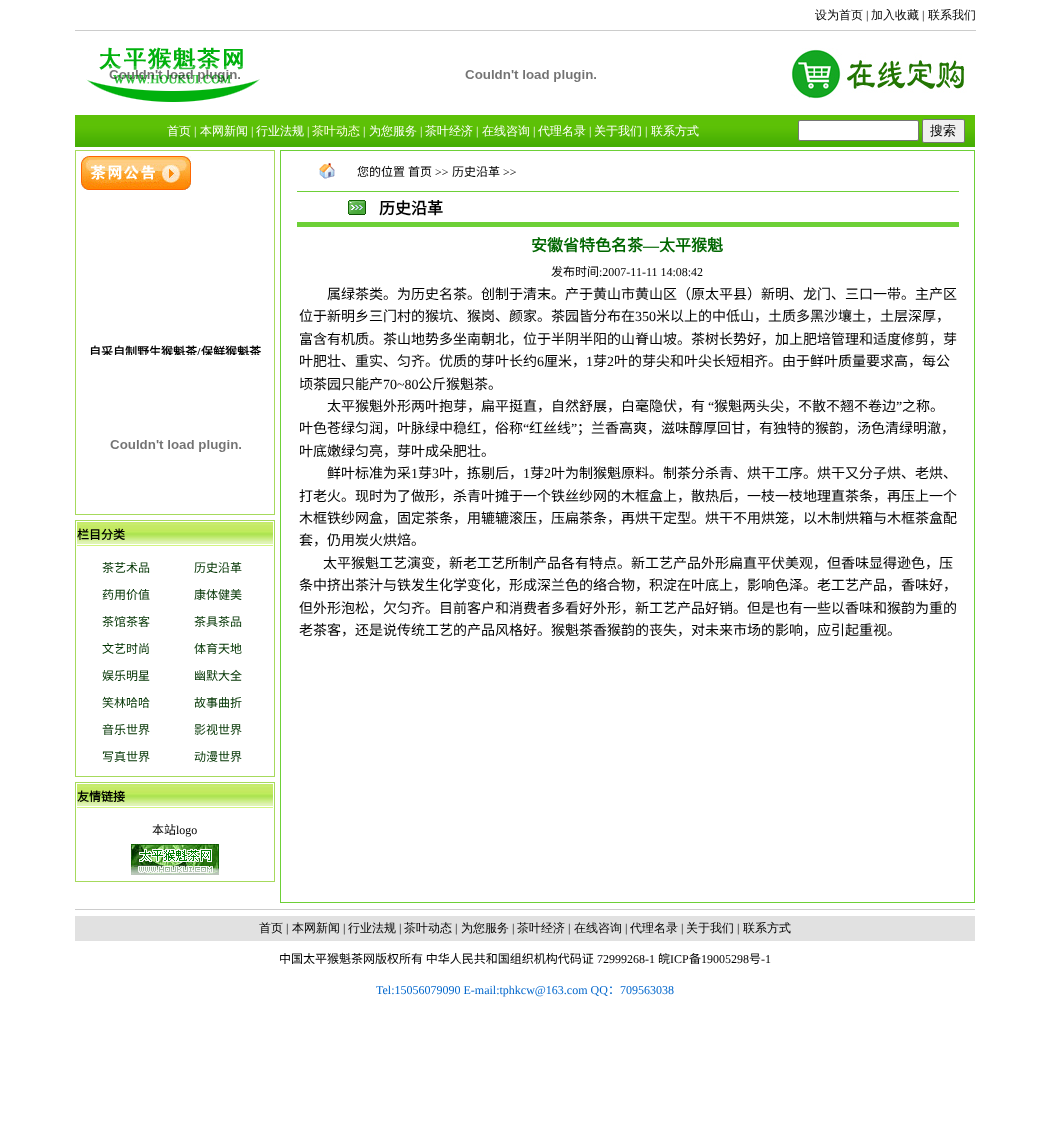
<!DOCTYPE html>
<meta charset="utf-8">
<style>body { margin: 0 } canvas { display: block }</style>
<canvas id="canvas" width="1050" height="1137"></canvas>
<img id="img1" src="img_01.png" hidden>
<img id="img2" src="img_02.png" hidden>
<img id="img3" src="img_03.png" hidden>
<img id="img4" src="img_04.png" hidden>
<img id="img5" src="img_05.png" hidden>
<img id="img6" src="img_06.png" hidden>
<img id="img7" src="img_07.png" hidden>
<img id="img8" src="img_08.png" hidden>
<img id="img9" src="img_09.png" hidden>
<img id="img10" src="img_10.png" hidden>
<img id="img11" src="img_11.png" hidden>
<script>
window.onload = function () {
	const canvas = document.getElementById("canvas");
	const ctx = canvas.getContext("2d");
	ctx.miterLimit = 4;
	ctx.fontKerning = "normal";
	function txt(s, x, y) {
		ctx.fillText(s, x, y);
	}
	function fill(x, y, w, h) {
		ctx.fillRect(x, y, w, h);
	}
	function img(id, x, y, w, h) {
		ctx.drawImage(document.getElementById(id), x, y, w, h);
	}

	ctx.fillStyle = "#FFFFFF";
	fill(0, 0, 1050, 1137);
	ctx.fillStyle = "#CCCCCC";
	fill(75, 30, 901, 1);
	img("img1", 86, 47, 174, 55);
	img("img2", 103, 66, 140, 18);
	img("img3", 465, 70, 131, 12);
	img("img4", 791, 48, 176, 51);
	img("img5", 75, 115, 716, 32);
	img("img6", 791, 115, 184, 32);
	ctx.fillStyle = "#FFFFFF";
	ctx.beginPath();
	ctx.roundRect(798.5, 120.5, 120, 20, 1.5);
	ctx.fill();
	ctx.strokeStyle = "#767676";
	ctx.stroke();
	ctx.fillStyle = "#EFEFEF";
	ctx.beginPath();
	ctx.roundRect(922.5, 119.5, 42, 23, 1.5);
	ctx.fill();
	ctx.stroke();
	ctx.fillStyle = "#A6DA5C";
	fill(75, 150, 200, 365);
	ctx.fillStyle = "#FFFFFF";
	fill(76, 151, 198, 363);
	img("img7", 81, 156, 110, 34);
	img("img3", 110, 440, 131, 12);
	ctx.fillStyle = "#A6DA5C";
	fill(75, 520, 200, 257);
	ctx.fillStyle = "#FFFFFF";
	fill(76, 521, 198, 255);
	img("img8", 77, 522, 196, 24);
	ctx.fillStyle = "#A6DA5C";
	fill(75, 782, 200, 100);
	ctx.fillStyle = "#FFFFFF";
	fill(76, 783, 198, 98);
	img("img8", 77, 784, 196, 24);
	img("img9", 131, 844, 88, 31);
	ctx.fillStyle = "#6DD037";
	fill(280, 150, 695, 753);
	ctx.fillStyle = "#FFFFFF";
	fill(281, 151, 693, 751);
	img("img10", 319, 163, 16, 16);
	ctx.fillStyle = "#6DD037";
	fill(297, 191, 662, 1);
	img("img11", 348, 200, 18, 15);
	fill(297, 222, 662, 5);
	ctx.fillStyle = "#CCCCCC";
	fill(75, 909, 900, 1);
	ctx.fillStyle = "#E1E1E1";
	fill(75, 916, 900, 25);
	ctx.font = "500 12px WenQuanYi Zen Hei";
	ctx.fillStyle = "#000000";
	txt("设为首页", 815, 19);
	ctx.font = "12px Liberation Serif";
	txt("|", 866, 19);
	ctx.font = "500 12px WenQuanYi Zen Hei";
	txt("加入收藏", 871, 19);
	ctx.font = "12px Liberation Serif";
	txt("|", 922, 19);
	ctx.font = "500 12px WenQuanYi Zen Hei";
	txt("联系我们", 928, 19);
	ctx.fillStyle = "#FFFFFE";
	txt("首页", 167, 135);
	ctx.font = "12px Liberation Serif";
	txt("|", 194, 135);
	ctx.font = "500 12px WenQuanYi Zen Hei";
	txt("本网新闻", 200, 135);
	ctx.font = "12px Liberation Serif";
	txt("|", 251, 135);
	ctx.font = "500 12px WenQuanYi Zen Hei";
	txt("行业法规", 256, 135);
	ctx.font = "12px Liberation Serif";
	txt("|", 307, 135);
	ctx.font = "500 12px WenQuanYi Zen Hei";
	ctx.fillStyle = "#FFFEE0";
	txt("茶叶动态", 312, 135);
	ctx.font = "12px Liberation Serif";
	ctx.fillStyle = "#FFFFFE";
	txt("|", 363, 135);
	ctx.font = "500 12px WenQuanYi Zen Hei";
	txt("为您服务", 369, 135);
	ctx.font = "12px Liberation Serif";
	txt("|", 420, 135);
	ctx.font = "500 12px WenQuanYi Zen Hei";
	txt("茶叶经济", 425, 135);
	ctx.font = "12px Liberation Serif";
	txt("|", 476, 135);
	ctx.font = "500 12px WenQuanYi Zen Hei";
	txt("在线咨询", 482, 135);
	ctx.font = "12px Liberation Serif";
	txt("|", 533, 135);
	ctx.font = "500 12px WenQuanYi Zen Hei";
	txt("代理名录", 538, 135);
	ctx.font = "12px Liberation Serif";
	txt("|", 589, 135);
	ctx.font = "500 12px WenQuanYi Zen Hei";
	txt("关于我们", 594, 135);
	ctx.font = "12px Liberation Serif";
	txt("|", 645, 135);
	ctx.font = "500 12px WenQuanYi Zen Hei";
	txt("联系方式", 651, 135);
	ctx.font = "500 13px WenQuanYi Zen Hei";
	ctx.fillStyle = "#000000";
	txt("搜索", 930, 135);
	ctx.save();
	ctx.beginPath();
	ctx.rect(81, 195, 188, 160);
	ctx.clip();
	ctx.font = "bold 12px Noto Sans CJK SC";
	txt("自采自制野生猴魁茶", 89, 356);
	ctx.font = "bold 12px Liberation Serif";
	txt("/", 197, 356);
	ctx.font = "bold 12px Noto Sans CJK SC";
	txt("保鲜猴魁茶", 201, 356);
	ctx.restore();
	ctx.font = "bold 12px Noto Sans CJK SC";
	txt("栏目分类", 77, 539);
	ctx.font = "12px Noto Sans CJK SC";
	ctx.fillStyle = "#003300";
	txt("茶艺术品", 102, 572);
	txt("历史沿革", 194, 572);
	txt("药用价值", 102, 599);
	txt("康体健美", 194, 599);
	txt("茶馆茶客", 102, 626);
	txt("茶具茶品", 194, 626);
	txt("文艺时尚", 102, 653);
	txt("体育天地", 194, 653);
	txt("娱乐明星", 102, 680);
	txt("幽默大全", 194, 680);
	txt("笑林哈哈", 102, 707);
	txt("故事曲折", 194, 707);
	txt("音乐世界", 102, 734);
	txt("影视世界", 194, 734);
	txt("写真世界", 102, 761);
	txt("动漫世界", 194, 761);
	ctx.font = "bold 12px Noto Sans CJK SC";
	ctx.fillStyle = "#000000";
	txt("友情链接", 77, 801);
	ctx.font = "12px Noto Sans CJK SC";
	txt("本站", 152, 834);
	ctx.font = "12px Liberation Serif";
	txt("logo", 176, 834);
	ctx.font = "12px Noto Sans CJK SC";
	txt("您的位置", 357, 176);
	txt("首页", 408, 176);
	ctx.font = "12px Liberation Serif";
	txt(">>", 435, 176);
	ctx.font = "12px Noto Sans CJK SC";
	txt("历史沿革", 452, 176);
	ctx.font = "12px Liberation Serif";
	txt(">>", 503, 176);
	ctx.font = "bold 16px Noto Sans CJK SC";
	txt("历史沿革", 379, 214);
	ctx.fillStyle = "#006600";
	txt("安徽省特色名茶", 531, 251);
	ctx.font = "bold 16px Liberation Serif";
	txt("—", 643, 251);
	ctx.font = "bold 16px Noto Sans CJK SC";
	txt("太平猴魁", 659, 251);
	ctx.font = "12px Noto Sans CJK SC";
	ctx.fillStyle = "#000000";
	txt("发布时间", 551, 276);
	ctx.font = "12px Liberation Serif";
	txt(":2007-11-11 14:08:42", 599, 276);
	ctx.font = "14px Noto Sans CJK SC";
	txt("属绿茶类。为历史名茶。创制于清末。产于黄山市黄山区（原太平县）新明、龙门、三口一带。主产区", 327, 299);
	txt("位于新明乡三门村的猴坑、猴岗、颜家。茶园皆分布在", 299, 321);
	ctx.font = "14px Liberation Serif";
	txt("350", 635, 321);
	ctx.font = "14px Noto Sans CJK SC";
	txt("米以上的中低山，土质多黑沙壤土，土层深厚，", 656, 321);
	txt("富含有机质。茶山地势多坐南朝北，位于半阴半阳的山脊山坡。茶树长势好，加上肥培管理和适度修剪，芽", 299, 344);
	txt("叶肥壮、重实、匀齐。优质的芽叶长约", 299, 366);
	ctx.font = "14px Liberation Serif";
	txt("6", 537, 366);
	ctx.font = "14px Noto Sans CJK SC";
	txt("厘米，", 544, 366);
	ctx.font = "14px Liberation Serif";
	txt("1", 586, 366);
	ctx.font = "14px Noto Sans CJK SC";
	txt("芽", 593, 366);
	ctx.font = "14px Liberation Serif";
	txt("2", 607, 366);
	ctx.font = "14px Noto Sans CJK SC";
	txt("叶的芽尖和叶尖长短相齐。由于鲜叶质量要求高，每公", 614, 366);
	txt("顷茶园只能产", 299, 389);
	ctx.font = "14px Liberation Serif";
	txt("70~80", 383, 389);
	ctx.font = "14px Noto Sans CJK SC";
	txt("公斤猴魁茶。", 418, 389);
	txt("太平猴魁外形两叶抱芽，扁平挺直，自然舒展，白毫隐伏，有", 327, 411);
	ctx.font = "14px Liberation Serif";
	txt("“", 708, 411);
	ctx.font = "14px Noto Sans CJK SC";
	txt("猴魁两头尖，不散不翘不卷边", 714, 411);
	ctx.font = "14px Liberation Serif";
	txt("”", 896, 411);
	ctx.font = "14px Noto Sans CJK SC";
	txt("之称。", 902, 411);
	txt("叶色苍绿匀润，叶脉绿中稳红，俗称", 299, 433);
	ctx.font = "14px Liberation Serif";
	txt("“", 523, 433);
	ctx.font = "14px Noto Sans CJK SC";
	txt("红丝线", 529, 433);
	ctx.font = "14px Liberation Serif";
	txt("”", 571, 433);
	ctx.font = "14px Noto Sans CJK SC";
	txt("；兰香高爽，滋味醇厚回甘，有独特的猴韵，汤色清绿明澈，", 577, 433);
	txt("叶底嫩绿匀亮，芽叶成朵肥壮。", 299, 456);
	txt("鲜叶标准为采", 327, 478);
	ctx.font = "14px Liberation Serif";
	txt("1", 411, 478);
	ctx.font = "14px Noto Sans CJK SC";
	txt("芽", 418, 478);
	ctx.font = "14px Liberation Serif";
	txt("3", 432, 478);
	ctx.font = "14px Noto Sans CJK SC";
	txt("叶，拣剔后，", 439, 478);
	ctx.font = "14px Liberation Serif";
	txt("1", 523, 478);
	ctx.font = "14px Noto Sans CJK SC";
	txt("芽", 530, 478);
	ctx.font = "14px Liberation Serif";
	txt("2", 544, 478);
	ctx.font = "14px Noto Sans CJK SC";
	txt("叶为制猴魁原料。制茶分杀青、烘干工序。烘干又分子烘、老烘、", 551, 478);
	txt("打老火。现时为了做形，杀青叶摊于一个铁丝纱网的木框盒上，散热后，一枝一枝地理直茶条，再压上一个", 299, 501);
	txt("木框铁纱网盒，固定茶条，用辘辘滚压，压扁茶条，再烘干定型。烘干不用烘笼，以木制烘箱与木框茶盒配", 299, 523);
	txt("套，仍用炭火烘焙。", 299, 545);
	txt("太平猴魁工艺演变，新老工艺所制产品各有特点。新工艺产品外形扁直平伏美观，但香味显得逊色，压", 323, 568);
	txt("条中挤出茶汁与铁发生化学变化，形成深兰色的络合物，积淀在叶底上，影响色泽。老工艺产品，香味好，", 299, 590);
	txt("但外形泡松，欠匀齐。目前客户和消费者多看好外形，新工艺产品好销。但是也有一些以香味和猴韵为重的", 299, 613);
	txt("老茶客，还是说传统工艺的产品风格好。猴魁茶香猴韵的丧失，对未来市场的影响，应引起重视。", 299, 635);
	ctx.font = "500 12px WenQuanYi Zen Hei";
	txt("首页", 259, 932);
	ctx.font = "12px Liberation Serif";
	txt("|", 286, 932);
	ctx.font = "500 12px WenQuanYi Zen Hei";
	txt("本网新闻", 292, 932);
	ctx.font = "12px Liberation Serif";
	txt("|", 343, 932);
	ctx.font = "500 12px WenQuanYi Zen Hei";
	txt("行业法规", 348, 932);
	ctx.font = "12px Liberation Serif";
	txt("|", 399, 932);
	ctx.font = "500 12px WenQuanYi Zen Hei";
	txt("茶叶动态", 404, 932);
	ctx.font = "12px Liberation Serif";
	txt("|", 455, 932);
	ctx.font = "500 12px WenQuanYi Zen Hei";
	txt("为您服务", 461, 932);
	ctx.font = "12px Liberation Serif";
	txt("|", 512, 932);
	ctx.font = "500 12px WenQuanYi Zen Hei";
	txt("茶叶经济", 517, 932);
	ctx.font = "12px Liberation Serif";
	txt("|", 568, 932);
	ctx.font = "500 12px WenQuanYi Zen Hei";
	txt("在线咨询", 574, 932);
	ctx.font = "12px Liberation Serif";
	txt("|", 625, 932);
	ctx.font = "500 12px WenQuanYi Zen Hei";
	txt("代理名录", 630, 932);
	ctx.font = "12px Liberation Serif";
	txt("|", 681, 932);
	ctx.font = "500 12px WenQuanYi Zen Hei";
	txt("关于我们", 686, 932);
	ctx.font = "12px Liberation Serif";
	txt("|", 737, 932);
	ctx.font = "500 12px WenQuanYi Zen Hei";
	txt("联系方式", 743, 932);
	ctx.font = "12px Noto Sans CJK SC";
	txt("中国太平猴魁茶网版权所有 中华人民共和国组织机构代码证", 279, 963);
	ctx.font = "12px Liberation Serif";
	txt("72999268-1", 597, 963);
	ctx.font = "12px Noto Sans CJK SC";
	txt("皖", 658, 963);
	ctx.font = "12px Liberation Serif";
	txt("ICP", 670, 963);
	ctx.font = "12px Noto Sans CJK SC";
	txt("备", 689, 963);
	ctx.font = "12px Liberation Serif";
	txt("19005298", 701, 963);
	ctx.font = "12px Noto Sans CJK SC";
	txt("号", 749, 963);
	ctx.font = "12px Liberation Serif";
	txt("-1", 761, 963);
	ctx.fillStyle = "#0066CC";
	txt("Tel:15056079090 E-mail:tphkcw@163.com QQ", 376, 994);
	ctx.font = "12px Noto Sans CJK SC";
	txt("：", 608, 994);
	ctx.font = "12px Liberation Serif";
	txt("709563038", 620, 994);
};
</script>
